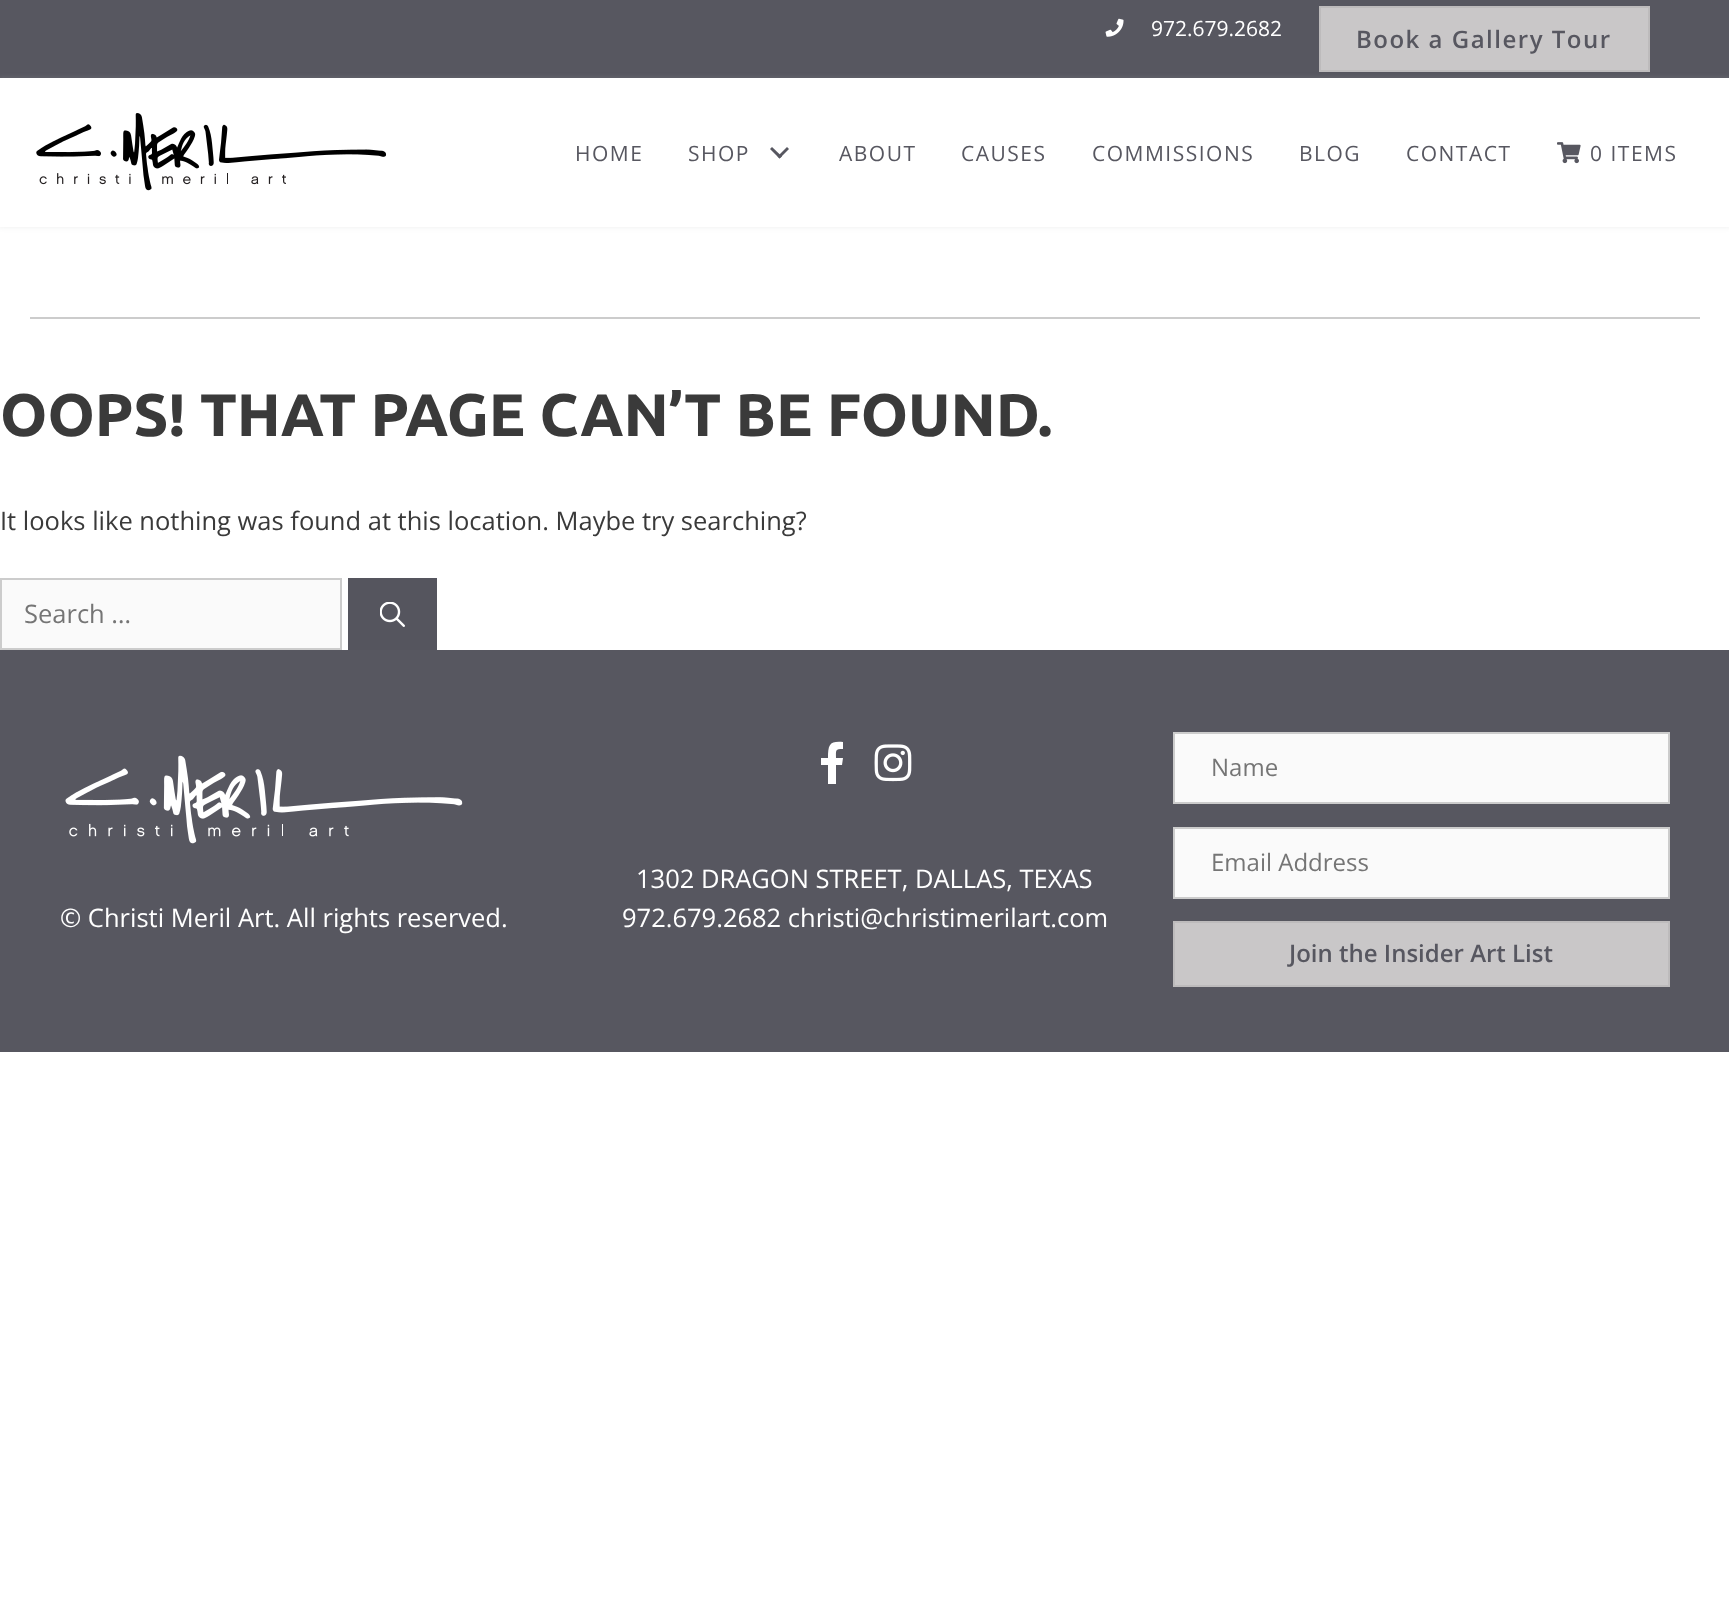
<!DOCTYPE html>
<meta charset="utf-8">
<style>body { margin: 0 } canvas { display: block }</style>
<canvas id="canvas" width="1729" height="1606"></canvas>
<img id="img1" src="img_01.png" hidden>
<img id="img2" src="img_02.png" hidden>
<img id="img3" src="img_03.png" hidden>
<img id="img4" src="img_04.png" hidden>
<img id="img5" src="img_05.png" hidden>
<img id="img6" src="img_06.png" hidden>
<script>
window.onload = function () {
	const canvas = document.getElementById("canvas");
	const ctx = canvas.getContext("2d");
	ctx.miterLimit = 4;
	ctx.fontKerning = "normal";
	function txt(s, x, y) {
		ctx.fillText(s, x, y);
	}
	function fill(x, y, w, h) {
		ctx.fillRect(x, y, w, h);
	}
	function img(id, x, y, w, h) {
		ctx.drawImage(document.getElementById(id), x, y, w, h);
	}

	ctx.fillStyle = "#FFFFFF";
	fill(0, 0, 1729, 1606);
	ctx.fillStyle = "#575760";
	fill(0, 0, 1729, 78);
	img("img1", 1105, 18, 19, 19);
	ctx.fillStyle = "#C9C7C8";
	ctx.beginPath();
	ctx.rect(1320, 7, 329, 64);
	ctx.fill();
	ctx.strokeStyle = "#BDBBBC";
	ctx.lineWidth = 2;
	ctx.stroke();
	ctx.fillStyle = "rgba(170, 173, 174, 0.16)";
	ctx.filter = "blur(2px)";
	ctx.beginPath();
	ctx.rect(-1, 77, 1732, 151);
	ctx.fill();
	ctx.filter = "none";
	ctx.fillStyle = "#FFFFFF";
	fill(0, 78, 1729, 149);
	img("img2", 36, 113, 351, 78);
	ctx.fillStyle = "#575760";
	ctx.beginPath();
	ctx.moveTo(787, 147);
	ctx.lineTo(789, 149);
	ctx.lineTo(779.5, 158.5);
	ctx.lineTo(777.5, 156.5);
	ctx.closePath();
	ctx.fill();
	ctx.beginPath();
	ctx.moveTo(772, 147);
	ctx.lineTo(782, 156.5);
	ctx.lineTo(779.5, 158.5);
	ctx.lineTo(770, 149);
	ctx.closePath();
	ctx.fill();
	img("img3", 1557, 142, 24, 22);
	ctx.fillStyle = "#CCCCCC";
	fill(30, 317, 1670, 2);
	ctx.fillStyle = "#FAFAFA";
	ctx.beginPath();
	ctx.rect(1, 579, 340, 70);
	ctx.fill();
	ctx.strokeStyle = "#CCCCCC";
	ctx.stroke();
	ctx.fillStyle = "#55555E";
	fill(348, 578, 89, 72);
	img("img4", 380, 602, 25, 25);
	ctx.fillStyle = "#575760";
	fill(0, 650, 1729, 402);
	img("img5", 65, 755, 398, 89);
	ctx.fillStyle = "#FFFFFF";
	ctx.beginPath();
	ctx.moveTo(842, 765);
	ctx.lineTo(836, 765);
	ctx.lineTo(836, 784);
	ctx.lineTo(828, 784);
	ctx.lineTo(828, 765);
	ctx.lineTo(821, 765);
	ctx.lineTo(821, 758);
	ctx.lineTo(828, 758);
	ctx.bezierCurveTo(828, 744, 830, 741, 843, 742);
	ctx.lineTo(843, 749);
	ctx.bezierCurveTo(835, 749, 836, 750, 836, 758);
	ctx.lineTo(843, 758);
	ctx.closePath();
	ctx.fill();
	img("img6", 874, 744, 38, 38);
	ctx.fillStyle = "#FAFAFA";
	ctx.beginPath();
	ctx.rect(1174, 733, 495, 70);
	ctx.fill();
	ctx.stroke();
	ctx.beginPath();
	ctx.rect(1174, 828, 495, 70);
	ctx.fill();
	ctx.stroke();
	ctx.fillStyle = "#C9C7C8";
	ctx.beginPath();
	ctx.rect(1174, 922, 495, 64);
	ctx.fill();
	ctx.strokeStyle = "#BDBBBC";
	ctx.stroke();
	ctx.font = "21px Open Sans";
	ctx.fillStyle = "#FFFFFF";
	txt("972.679.2682", 1151, 36);
	ctx.letterSpacing = "1.5px";
	ctx.font = "600 24px Open Sans";
	ctx.fillStyle = "#575760";
	txt("Book a Gallery Tour", 1356, 48);
	ctx.font = "21px Open Sans";
	txt("HOME", 575, 161);
	txt("SHOP", 688, 161);
	txt("ABOUT", 839, 161);
	txt("CAUSES", 961, 161);
	txt("COMMISSIONS", 1092, 161);
	txt("BLOG", 1299, 161);
	txt("CONTACT", 1406, 161);
	txt("0 ITEMS", 1590, 161);
	ctx.letterSpacing = "0px";
	ctx.font = "bold 60px Ubuntu";
	ctx.fillStyle = "#3A3A3A";
	txt("OOPS! THAT PAGE CAN’T BE FOUND.", 0, 436);
	ctx.font = "25.5px Open Sans";
	txt("It looks like nothing was found at this location. Maybe try searching?", 0, 530);
	ctx.fillStyle = "#757575";
	txt("Search …", 24, 623);
	ctx.fillStyle = "#FFFFFF";
	txt("© Christi Meril Art. All rights reserved.", 60, 927);
	txt("1302 DRAGON STREET, DALLAS, TEXAS", 636, 888);
	txt("972.679.2682 christi@christimerilart.com", 622, 927);
	ctx.font = "24px Open Sans";
	ctx.fillStyle = "#757575";
	txt("Name", 1211, 776);
	txt("Email Address", 1211, 871);
	ctx.font = "600 24px Open Sans";
	ctx.fillStyle = "#575760";
	txt("Join the Insider Art List", 1289, 962);
};
</script>
